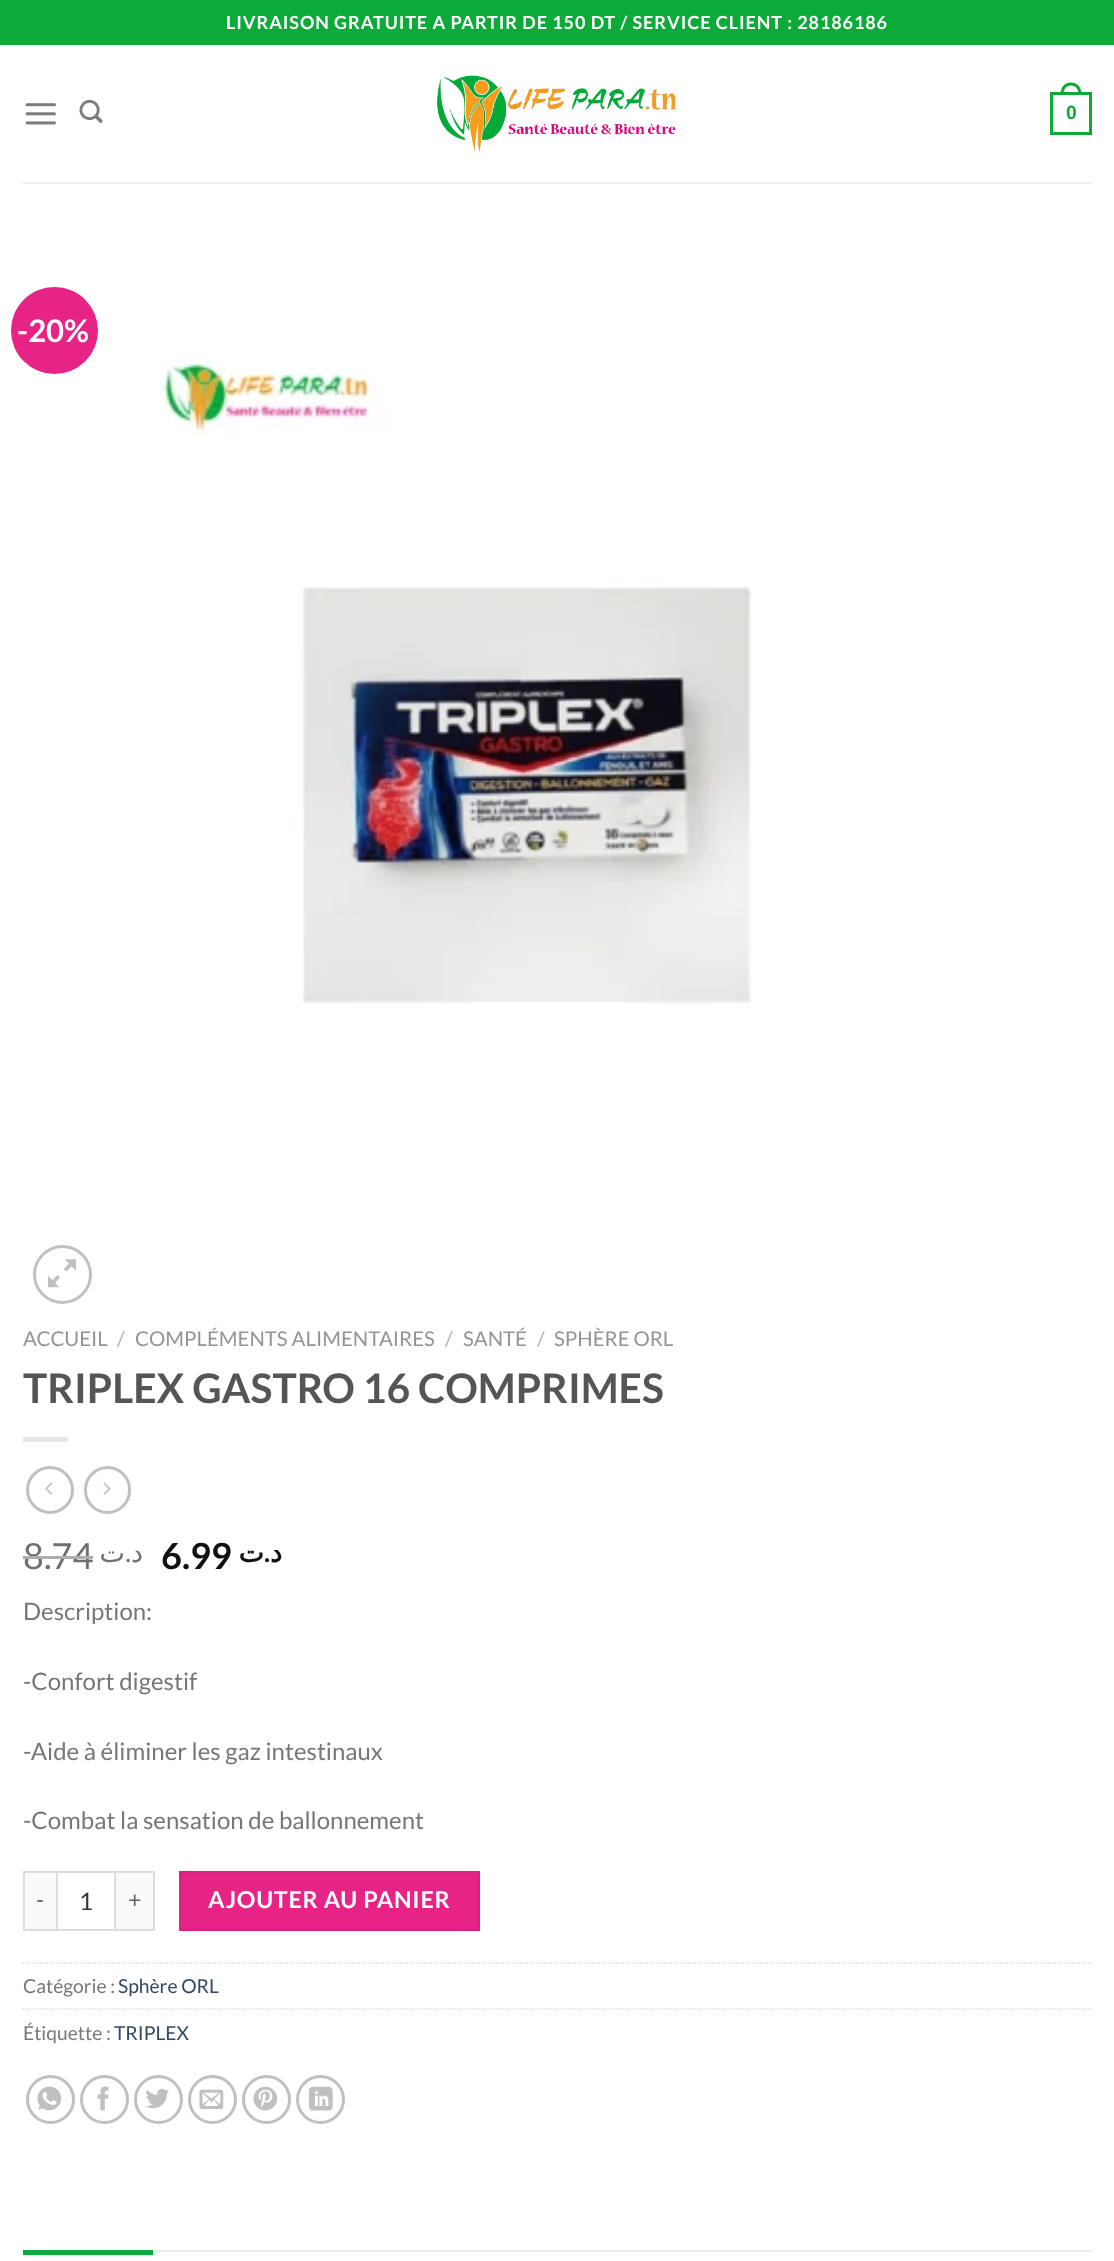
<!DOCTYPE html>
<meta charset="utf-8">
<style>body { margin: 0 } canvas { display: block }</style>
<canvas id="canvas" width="1114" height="2261"></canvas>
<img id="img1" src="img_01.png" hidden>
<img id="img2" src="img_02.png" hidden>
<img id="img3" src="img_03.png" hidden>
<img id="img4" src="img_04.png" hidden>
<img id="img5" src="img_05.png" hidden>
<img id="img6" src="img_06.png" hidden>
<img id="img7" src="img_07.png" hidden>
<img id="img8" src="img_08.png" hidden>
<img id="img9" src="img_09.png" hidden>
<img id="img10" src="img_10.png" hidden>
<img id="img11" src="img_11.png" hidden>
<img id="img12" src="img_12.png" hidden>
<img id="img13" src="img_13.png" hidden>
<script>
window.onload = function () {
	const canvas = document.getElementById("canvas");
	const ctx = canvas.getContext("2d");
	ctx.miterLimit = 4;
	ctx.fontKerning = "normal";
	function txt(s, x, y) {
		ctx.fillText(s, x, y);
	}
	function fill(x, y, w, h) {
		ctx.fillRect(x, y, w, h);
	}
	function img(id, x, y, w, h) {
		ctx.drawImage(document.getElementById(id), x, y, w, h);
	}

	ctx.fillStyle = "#FFFFFF";
	fill(0, 0, 1114, 2261);
	ctx.fillStyle = "#0BAA39";
	fill(0, 0, 1114, 45);
	img("img1", 25, 103, 31, 22);
	img("img2", 79, 99, 24, 24);
	img("img3", 437, 75, 240, 77);
	ctx.strokeStyle = "#0BAA39";
	ctx.lineWidth = 3;
	ctx.strokeRect(1051.5, 93.5, 39, 40);
	ctx.beginPath();
	ctx.moveTo(1071, 82.5);
	ctx.bezierCurveTo(1078, 82.5, 1081.5, 88, 1081.5, 94.5);
	ctx.lineTo(1060.5, 94.5);
	ctx.bezierCurveTo(1060.5, 88, 1064, 82.5, 1071, 82.5);
	ctx.closePath();
	ctx.moveTo(1071, 85.5);
	ctx.bezierCurveTo(1076.5, 85.5, 1078.5, 90, 1078.5, 94.5);
	ctx.lineTo(1063.5, 94.5);
	ctx.bezierCurveTo(1063.5, 90, 1065.5, 85.5, 1071, 85.5);
	ctx.closePath();
	ctx.fill("evenodd");
	ctx.fillStyle = "#F1F1F1";
	fill(23, 182, 1069, 2);
	ctx.fillStyle = "#E72386";
	ctx.beginPath();
	ctx.arc(54.5, 330.5, 43.5, 0, Math.PI * 2);
	ctx.fill();
	img("img4", 161, 359, 592, 646);
	ctx.beginPath();
	ctx.arc(62.5, 1274.5, 28, 0, Math.PI * 2);
	ctx.strokeStyle = "#C0C0C0";
	ctx.stroke();
	img("img5", 48, 1259, 28, 29);
	ctx.fillStyle = "#E6E6E6";
	fill(23, 1437, 45, 5);
	ctx.beginPath();
	ctx.arc(50, 1490, 22.5, 0, Math.PI * 2);
	ctx.stroke();
	img("img6", 45, 1482, 8, 13);
	ctx.beginPath();
	ctx.roundRect(85.5, 1467.5, 44, 45, 22);
	ctx.stroke();
	img("img7", 103, 1482, 8, 13);
	ctx.fillStyle = "#F9F9F9";
	fill(25, 1873, 31, 56);
	ctx.fillStyle = "#DDDDDD";
	fill(23, 1871, 33, 2);
	fill(23, 1929, 33, 2);
	fill(23, 1871, 2, 60);
	ctx.strokeStyle = "#DDDDDD";
	ctx.lineWidth = 2;
	ctx.strokeRect(57, 1872, 58, 58);
	ctx.fillStyle = "#F9F9F9";
	fill(116, 1873, 37, 56);
	ctx.fillStyle = "#DDDDDD";
	fill(116, 1871, 39, 2);
	fill(153, 1871, 2, 60);
	fill(116, 1929, 39, 2);
	ctx.fillStyle = "#E72386";
	ctx.beginPath();
	ctx.rect(180, 1872, 299, 58);
	ctx.fill();
	ctx.strokeStyle = "#DB217F";
	ctx.stroke();
	ctx.beginPath();
	ctx.moveTo(22.5, 1963);
	ctx.lineTo(1092, 1963);
	ctx.strokeStyle = "#DDDDDD";
	ctx.lineWidth = 1.5;
	ctx.setLineDash([1.5, 1.5]);
	ctx.stroke();
	ctx.beginPath();
	ctx.moveTo(22.5, 2009);
	ctx.lineTo(1092, 2009);
	ctx.stroke();
	ctx.beginPath();
	ctx.arc(50.5, 2099.5, 23, 0, Math.PI * 2);
	ctx.strokeStyle = "#C0C0C0";
	ctx.lineWidth = 3;
	ctx.setLineDash([]);
	ctx.stroke();
	img("img8", 37, 2086, 25, 25);
	ctx.beginPath();
	ctx.arc(104.5, 2099.5, 23, 0, Math.PI * 2);
	ctx.stroke();
	img("img9", 97, 2086, 12, 25);
	ctx.beginPath();
	ctx.arc(158.5, 2099.5, 23, 0, Math.PI * 2);
	ctx.stroke();
	img("img10", 146, 2089, 23, 20);
	ctx.beginPath();
	ctx.arc(212.5, 2099.5, 23, 0, Math.PI * 2);
	ctx.stroke();
	img("img11", 199, 2089, 25, 20);
	ctx.beginPath();
	ctx.arc(266.5, 2099.5, 23, 0, Math.PI * 2);
	ctx.stroke();
	img("img12", 253, 2086, 25, 25);
	ctx.beginPath();
	ctx.arc(320.5, 2099.5, 23, 0, Math.PI * 2);
	ctx.stroke();
	img("img13", 309, 2086, 24, 25);
	ctx.fillStyle = "#ECECEC";
	fill(153, 2250, 939, 2);
	ctx.fillStyle = "#0BAA39";
	fill(23, 2250, 130, 5);
	ctx.letterSpacing = "0.9px";
	ctx.font = "bold 18px Lato";
	ctx.fillStyle = "#FFFFFF";
	txt("LIVRAISON GRATUITE A PARTIR DE 150 DT / SERVICE CLIENT : 28186186", 226, 29);
	ctx.letterSpacing = "0px";
	ctx.font = "bold 19.25px Liberation Sans";
	ctx.fillStyle = "#0BAA39";
	txt("0", 1066, 119);
	ctx.font = "bold 31px Lato";
	ctx.fillStyle = "#FFFFFF";
	txt("-20%", 17, 342);
	ctx.font = "20.4px Lato";
	ctx.fillStyle = "#949494";
	txt("ACCUEIL", 23, 1346);
	ctx.fillStyle = "#B2B2B2";
	txt("/", 117, 1346);
	ctx.fillStyle = "#949494";
	txt("COMPLÉMENTS ALIMENTAIRES", 135, 1346);
	ctx.fillStyle = "#B2B2B2";
	txt("/", 445, 1346);
	ctx.fillStyle = "#949494";
	txt("SANTÉ", 463, 1346);
	ctx.fillStyle = "#B2B2B2";
	txt("/", 537, 1346);
	ctx.fillStyle = "#949494";
	txt("SPHÈRE ORL", 554, 1346);
	ctx.font = "bold 40.75px Lato";
	ctx.fillStyle = "#555555";
	txt("TRIPLEX GASTRO 16 COMPRIMES", 23, 1403);
	ctx.font = "36px Lato";
	ctx.fillStyle = "#707070";
	txt("8.74", 23, 1569);
	ctx.fillStyle = "#ADADAD";
	fill(23, 1556, 70, 3);
	ctx.direction = "rtl";
	ctx.font = "27px DejaVu Sans";
	ctx.fillStyle = "#707070";
	txt("ت", 125, 1562);
	ctx.font = "27px Lato";
	txt(".", 131, 1562);
	ctx.font = "27px DejaVu Sans";
	txt("د", 143, 1562);
	ctx.direction = "ltr";
	ctx.font = "bold 36px Lato";
	ctx.fillStyle = "#111111";
	txt("6.99", 161, 1569);
	ctx.direction = "rtl";
	ctx.font = "bold 27px DejaVu Sans";
	txt("ت", 264, 1562);
	ctx.font = "bold 27px Lato";
	txt(".", 270, 1562);
	ctx.font = "bold 27px DejaVu Sans";
	txt("د", 282, 1562);
	ctx.direction = "ltr";
	ctx.font = "24px Lato";
	ctx.fillStyle = "#777777";
	txt("Description:", 23, 1620);
	txt("-Confort digestif", 23, 1690);
	txt("-Aide à éliminer les gaz intestinaux", 23, 1760);
	txt("-Combat la sensation de ballonnement", 23, 1829);
	ctx.letterSpacing = "0.75px";
	ctx.font = "23.25px Lato";
	ctx.fillStyle = "#666666";
	txt("-", 36, 1908);
	ctx.letterSpacing = "0px";
	ctx.font = "24px Lato";
	ctx.fillStyle = "#333333";
	txt("1", 79, 1910);
	ctx.letterSpacing = "0.75px";
	ctx.font = "23.25px Lato";
	ctx.fillStyle = "#666666";
	txt("+", 128, 1908);
	ctx.font = "bold 23.25px Lato";
	ctx.fillStyle = "#FFFFFF";
	txt("AJOUTER AU PANIER", 208, 1908);
	ctx.letterSpacing = "0px";
	ctx.font = "19.25px Lato";
	ctx.fillStyle = "#777777";
	txt("Catégorie :", 23, 1993);
	ctx.fillStyle = "#334862";
	txt("Sphère ORL", 118, 1993);
	ctx.fillStyle = "#777777";
	txt("Étiquette :", 23, 2040);
	ctx.fillStyle = "#334862";
	txt("TRIPLEX", 114, 2040);
};
</script>
